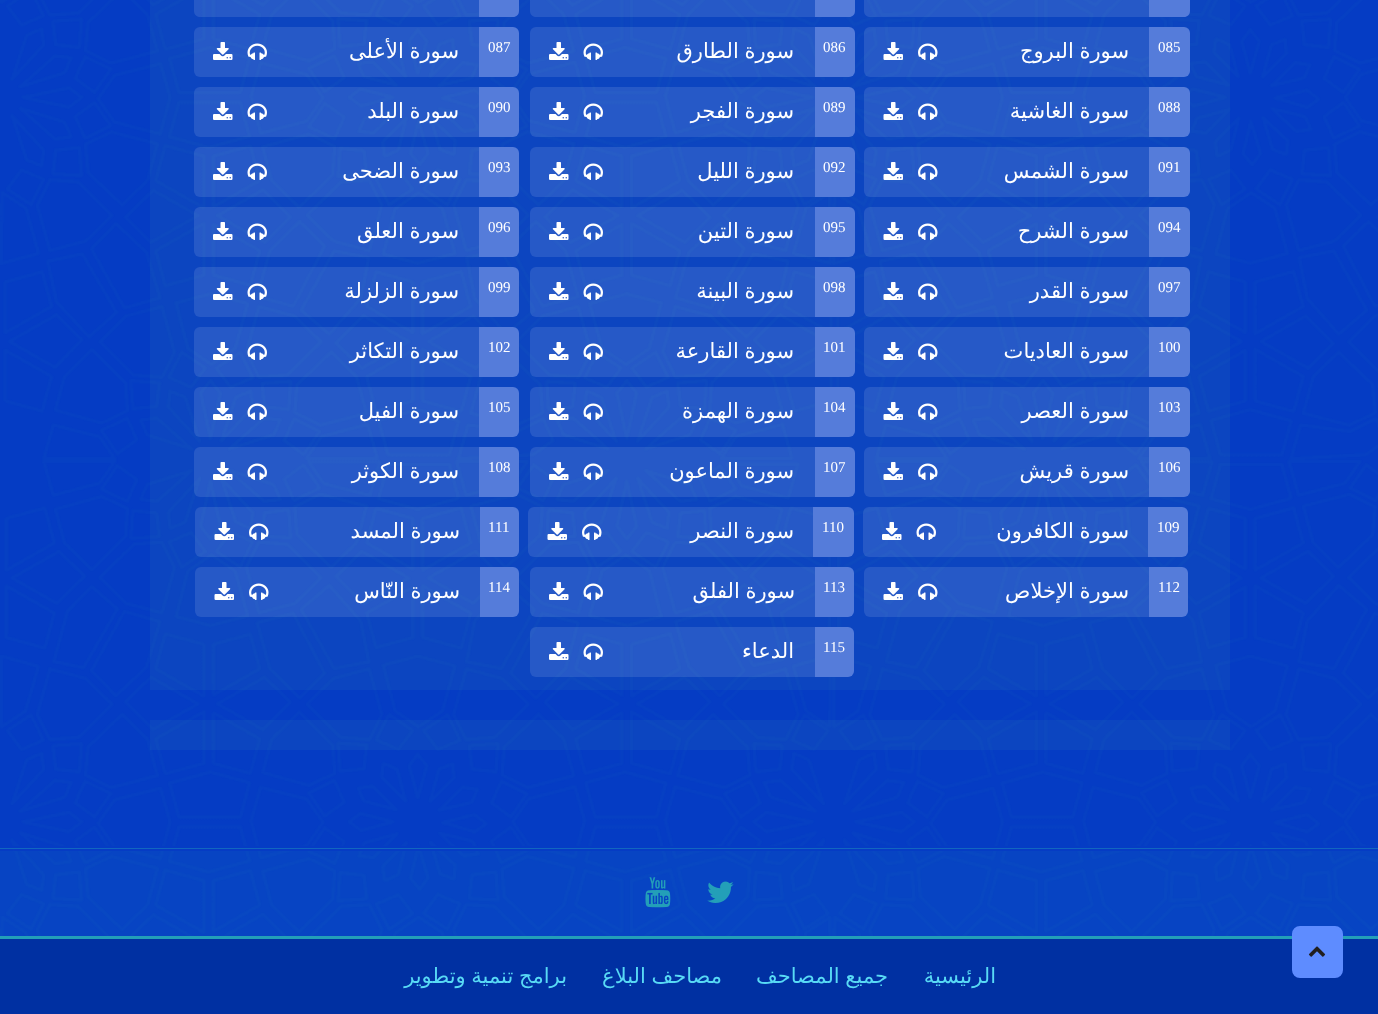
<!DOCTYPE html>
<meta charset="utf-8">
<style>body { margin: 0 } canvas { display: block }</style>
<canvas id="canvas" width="1378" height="1014"></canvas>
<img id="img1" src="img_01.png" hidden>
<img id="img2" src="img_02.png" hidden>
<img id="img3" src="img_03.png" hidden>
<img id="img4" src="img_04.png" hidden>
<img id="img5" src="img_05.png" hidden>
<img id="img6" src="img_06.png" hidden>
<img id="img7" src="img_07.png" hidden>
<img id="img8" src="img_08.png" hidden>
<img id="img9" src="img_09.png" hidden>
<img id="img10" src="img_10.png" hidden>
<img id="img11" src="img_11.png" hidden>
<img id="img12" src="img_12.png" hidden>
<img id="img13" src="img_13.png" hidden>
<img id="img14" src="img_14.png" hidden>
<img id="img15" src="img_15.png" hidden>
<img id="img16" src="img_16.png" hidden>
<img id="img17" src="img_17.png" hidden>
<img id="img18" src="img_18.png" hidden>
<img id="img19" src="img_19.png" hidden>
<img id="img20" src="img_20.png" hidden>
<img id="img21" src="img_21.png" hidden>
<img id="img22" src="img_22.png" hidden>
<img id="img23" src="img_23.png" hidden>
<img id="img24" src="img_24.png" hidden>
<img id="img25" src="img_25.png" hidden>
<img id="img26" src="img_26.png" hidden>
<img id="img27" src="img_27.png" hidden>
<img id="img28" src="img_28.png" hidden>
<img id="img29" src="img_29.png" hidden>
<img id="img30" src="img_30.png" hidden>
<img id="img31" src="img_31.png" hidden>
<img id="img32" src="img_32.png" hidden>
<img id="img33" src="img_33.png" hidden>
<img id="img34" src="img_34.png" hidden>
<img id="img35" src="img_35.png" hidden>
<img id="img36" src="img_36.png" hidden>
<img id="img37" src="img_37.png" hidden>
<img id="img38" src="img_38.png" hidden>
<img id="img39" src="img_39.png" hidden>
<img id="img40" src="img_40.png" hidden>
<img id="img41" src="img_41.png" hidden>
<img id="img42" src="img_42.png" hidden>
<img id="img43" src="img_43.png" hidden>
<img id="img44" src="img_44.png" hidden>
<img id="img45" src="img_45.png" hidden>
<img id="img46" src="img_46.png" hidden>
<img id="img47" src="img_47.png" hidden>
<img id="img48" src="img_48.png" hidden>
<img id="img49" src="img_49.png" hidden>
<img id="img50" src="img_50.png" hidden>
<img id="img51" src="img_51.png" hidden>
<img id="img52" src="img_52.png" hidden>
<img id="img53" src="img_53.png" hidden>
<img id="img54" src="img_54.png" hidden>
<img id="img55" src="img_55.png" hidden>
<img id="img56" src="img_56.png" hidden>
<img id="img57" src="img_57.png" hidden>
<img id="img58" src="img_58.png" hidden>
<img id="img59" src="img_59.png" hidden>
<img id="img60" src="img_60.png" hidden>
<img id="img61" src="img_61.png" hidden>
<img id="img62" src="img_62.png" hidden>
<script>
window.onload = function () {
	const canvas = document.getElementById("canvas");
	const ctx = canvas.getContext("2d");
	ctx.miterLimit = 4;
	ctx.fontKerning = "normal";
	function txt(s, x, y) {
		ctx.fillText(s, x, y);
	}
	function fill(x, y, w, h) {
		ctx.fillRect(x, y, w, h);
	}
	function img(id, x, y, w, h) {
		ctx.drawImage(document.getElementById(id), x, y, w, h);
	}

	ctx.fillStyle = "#053CC4";
	fill(0, 0, 1378, 1014);
	img("img1", 0, 0, 1378, 936);
	ctx.fillStyle = "rgba(72, 142, 160, 0.11)";
	fill(150, 0, 1080, 690);
	ctx.fillStyle = "#557CDA";
	ctx.beginPath();
	ctx.moveTo(1149, -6);
	ctx.lineTo(1184, -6);
	ctx.bezierCurveTo(1187.5, -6, 1190, -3.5, 1190, 0);
	ctx.lineTo(1190, 11);
	ctx.bezierCurveTo(1190, 14.5, 1187.5, 17, 1184, 17);
	ctx.lineTo(1149, 17);
	ctx.closePath();
	ctx.fill();
	ctx.fillStyle = "rgba(255, 255, 255, 0.11)";
	ctx.beginPath();
	ctx.moveTo(870, -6);
	ctx.lineTo(1149, -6);
	ctx.lineTo(1149, 17);
	ctx.lineTo(870, 17);
	ctx.bezierCurveTo(866.5, 17, 864, 14.5, 864, 11);
	ctx.lineTo(864, 0);
	ctx.bezierCurveTo(864, -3.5, 866.5, -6, 870, -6);
	ctx.closePath();
	ctx.fill();
	ctx.fillStyle = "#557CDA";
	ctx.beginPath();
	ctx.moveTo(815, -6);
	ctx.lineTo(849, -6);
	ctx.bezierCurveTo(852.5, -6, 855, -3.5, 855, 0);
	ctx.lineTo(855, 11);
	ctx.bezierCurveTo(855, 14.5, 852.5, 17, 849, 17);
	ctx.lineTo(815, 17);
	ctx.closePath();
	ctx.fill();
	ctx.fillStyle = "rgba(255, 255, 255, 0.11)";
	ctx.beginPath();
	ctx.moveTo(536, -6);
	ctx.lineTo(815, -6);
	ctx.lineTo(815, 17);
	ctx.lineTo(536, 17);
	ctx.bezierCurveTo(532.5, 17, 530, 14.5, 530, 11);
	ctx.lineTo(530, 0);
	ctx.bezierCurveTo(530, -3.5, 532.5, -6, 536, -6);
	ctx.closePath();
	ctx.fill();
	ctx.fillStyle = "#557CDA";
	ctx.beginPath();
	ctx.moveTo(479, -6);
	ctx.lineTo(513, -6);
	ctx.bezierCurveTo(516.5, -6, 519, -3.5, 519, 0);
	ctx.lineTo(519, 11);
	ctx.bezierCurveTo(519, 14.5, 516.5, 17, 513, 17);
	ctx.lineTo(479, 17);
	ctx.closePath();
	ctx.fill();
	ctx.fillStyle = "rgba(255, 255, 255, 0.11)";
	ctx.beginPath();
	ctx.moveTo(200, -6);
	ctx.lineTo(479, -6);
	ctx.lineTo(479, 17);
	ctx.lineTo(200, 17);
	ctx.bezierCurveTo(196.5, 17, 194, 14.5, 194, 11);
	ctx.lineTo(194, 0);
	ctx.bezierCurveTo(194, -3.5, 196.5, -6, 200, -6);
	ctx.closePath();
	ctx.fill();
	ctx.fillStyle = "#557CDA";
	ctx.beginPath();
	ctx.roundRect(1149, 27, 41, 50, [0, 6, 6, 0]);
	ctx.fill();
	ctx.fillStyle = "rgba(255, 255, 255, 0.11)";
	ctx.beginPath();
	ctx.roundRect(864, 27, 285, 50, [6, 0, 0, 6]);
	ctx.fill();
	img("img2", 918, 43, 20, 17);
	img("img3", 883, 42, 20, 18);
	ctx.fillStyle = "#557CDA";
	ctx.beginPath();
	ctx.roundRect(815, 27, 40, 50, [0, 6, 6, 0]);
	ctx.fill();
	ctx.fillStyle = "rgba(255, 255, 255, 0.11)";
	ctx.beginPath();
	ctx.roundRect(530, 27, 285, 50, [6, 0, 0, 6]);
	ctx.fill();
	img("img4", 583, 43, 20, 17);
	img("img5", 549, 42, 20, 18);
	ctx.fillStyle = "#557CDA";
	ctx.beginPath();
	ctx.roundRect(479, 27, 40, 50, [0, 6, 6, 0]);
	ctx.fill();
	ctx.fillStyle = "rgba(255, 255, 255, 0.11)";
	ctx.beginPath();
	ctx.roundRect(194, 27, 285, 50, [6, 0, 0, 6]);
	ctx.fill();
	img("img6", 247, 43, 20, 17);
	img("img7", 213, 42, 20, 18);
	ctx.fillStyle = "#557CDA";
	ctx.beginPath();
	ctx.roundRect(1149, 87, 41, 50, [0, 6, 6, 0]);
	ctx.fill();
	ctx.fillStyle = "rgba(255, 255, 255, 0.11)";
	ctx.beginPath();
	ctx.roundRect(864, 87, 285, 50, [6, 0, 0, 6]);
	ctx.fill();
	img("img8", 918, 103, 20, 17);
	img("img9", 883, 102, 20, 18);
	ctx.fillStyle = "#557CDA";
	ctx.beginPath();
	ctx.roundRect(815, 87, 40, 50, [0, 6, 6, 0]);
	ctx.fill();
	ctx.fillStyle = "rgba(255, 255, 255, 0.11)";
	ctx.beginPath();
	ctx.roundRect(530, 87, 285, 50, [6, 0, 0, 6]);
	ctx.fill();
	img("img10", 583, 103, 20, 17);
	img("img11", 549, 102, 20, 18);
	ctx.fillStyle = "#557CDA";
	ctx.beginPath();
	ctx.roundRect(479, 87, 40, 50, [0, 6, 6, 0]);
	ctx.fill();
	ctx.fillStyle = "rgba(255, 255, 255, 0.11)";
	ctx.beginPath();
	ctx.roundRect(194, 87, 285, 50, [6, 0, 0, 6]);
	ctx.fill();
	img("img12", 247, 103, 20, 17);
	img("img13", 213, 102, 20, 18);
	ctx.fillStyle = "#557CDA";
	ctx.beginPath();
	ctx.roundRect(1149, 147, 41, 50, [0, 6, 6, 0]);
	ctx.fill();
	ctx.fillStyle = "rgba(255, 255, 255, 0.11)";
	ctx.beginPath();
	ctx.roundRect(864, 147, 285, 50, [6, 0, 0, 6]);
	ctx.fill();
	img("img14", 918, 163, 20, 17);
	img("img15", 883, 162, 20, 18);
	ctx.fillStyle = "#557CDA";
	ctx.beginPath();
	ctx.roundRect(815, 147, 40, 50, [0, 6, 6, 0]);
	ctx.fill();
	ctx.fillStyle = "rgba(255, 255, 255, 0.11)";
	ctx.beginPath();
	ctx.roundRect(530, 147, 285, 50, [6, 0, 0, 6]);
	ctx.fill();
	img("img16", 583, 163, 20, 17);
	img("img17", 549, 162, 20, 18);
	ctx.fillStyle = "#557CDA";
	ctx.beginPath();
	ctx.roundRect(479, 147, 40, 50, [0, 6, 6, 0]);
	ctx.fill();
	ctx.fillStyle = "rgba(255, 255, 255, 0.11)";
	ctx.beginPath();
	ctx.roundRect(194, 147, 285, 50, [6, 0, 0, 6]);
	ctx.fill();
	img("img18", 247, 163, 20, 17);
	img("img19", 213, 162, 20, 18);
	ctx.fillStyle = "#557CDA";
	ctx.beginPath();
	ctx.roundRect(1149, 207, 41, 50, [0, 6, 6, 0]);
	ctx.fill();
	ctx.fillStyle = "rgba(255, 255, 255, 0.11)";
	ctx.beginPath();
	ctx.roundRect(864, 207, 285, 50, [6, 0, 0, 6]);
	ctx.fill();
	img("img20", 918, 223, 20, 17);
	img("img21", 883, 222, 20, 18);
	ctx.fillStyle = "#557CDA";
	ctx.beginPath();
	ctx.roundRect(815, 207, 40, 50, [0, 6, 6, 0]);
	ctx.fill();
	ctx.fillStyle = "rgba(255, 255, 255, 0.11)";
	ctx.beginPath();
	ctx.roundRect(530, 207, 285, 50, [6, 0, 0, 6]);
	ctx.fill();
	img("img22", 583, 223, 20, 17);
	img("img23", 549, 222, 20, 18);
	ctx.fillStyle = "#557CDA";
	ctx.beginPath();
	ctx.roundRect(479, 207, 40, 50, [0, 6, 6, 0]);
	ctx.fill();
	ctx.fillStyle = "rgba(255, 255, 255, 0.11)";
	ctx.beginPath();
	ctx.roundRect(194, 207, 285, 50, [6, 0, 0, 6]);
	ctx.fill();
	img("img24", 247, 223, 20, 17);
	img("img25", 213, 222, 20, 18);
	ctx.fillStyle = "#557CDA";
	ctx.beginPath();
	ctx.roundRect(1149, 267, 41, 50, [0, 6, 6, 0]);
	ctx.fill();
	ctx.fillStyle = "rgba(255, 255, 255, 0.11)";
	ctx.beginPath();
	ctx.roundRect(864, 267, 285, 50, [6, 0, 0, 6]);
	ctx.fill();
	img("img26", 918, 283, 20, 17);
	img("img27", 883, 282, 20, 18);
	ctx.fillStyle = "#557CDA";
	ctx.beginPath();
	ctx.roundRect(815, 267, 40, 50, [0, 6, 6, 0]);
	ctx.fill();
	ctx.fillStyle = "rgba(255, 255, 255, 0.11)";
	ctx.beginPath();
	ctx.roundRect(530, 267, 285, 50, [6, 0, 0, 6]);
	ctx.fill();
	img("img28", 583, 283, 20, 17);
	img("img29", 549, 282, 20, 18);
	ctx.fillStyle = "#557CDA";
	ctx.beginPath();
	ctx.roundRect(479, 267, 40, 50, [0, 6, 6, 0]);
	ctx.fill();
	ctx.fillStyle = "rgba(255, 255, 255, 0.11)";
	ctx.beginPath();
	ctx.roundRect(194, 267, 285, 50, [6, 0, 0, 6]);
	ctx.fill();
	img("img30", 247, 283, 20, 17);
	img("img31", 213, 282, 20, 18);
	ctx.fillStyle = "#557CDA";
	ctx.beginPath();
	ctx.roundRect(1149, 327, 41, 50, [0, 6, 6, 0]);
	ctx.fill();
	ctx.fillStyle = "rgba(255, 255, 255, 0.11)";
	ctx.beginPath();
	ctx.roundRect(864, 327, 285, 50, [6, 0, 0, 6]);
	ctx.fill();
	img("img32", 918, 343, 20, 17);
	img("img33", 883, 342, 20, 18);
	ctx.fillStyle = "#557CDA";
	ctx.beginPath();
	ctx.roundRect(815, 327, 40, 50, [0, 6, 6, 0]);
	ctx.fill();
	ctx.fillStyle = "rgba(255, 255, 255, 0.11)";
	ctx.beginPath();
	ctx.roundRect(530, 327, 285, 50, [6, 0, 0, 6]);
	ctx.fill();
	img("img34", 583, 343, 20, 17);
	img("img11", 549, 342, 20, 18);
	ctx.fillStyle = "#557CDA";
	ctx.beginPath();
	ctx.roundRect(479, 327, 40, 50, [0, 6, 6, 0]);
	ctx.fill();
	ctx.fillStyle = "rgba(255, 255, 255, 0.11)";
	ctx.beginPath();
	ctx.roundRect(194, 327, 285, 50, [6, 0, 0, 6]);
	ctx.fill();
	img("img35", 247, 343, 20, 17);
	img("img36", 213, 342, 20, 18);
	ctx.fillStyle = "#557CDA";
	ctx.beginPath();
	ctx.roundRect(1149, 387, 41, 50, [0, 6, 6, 0]);
	ctx.fill();
	ctx.fillStyle = "rgba(255, 255, 255, 0.11)";
	ctx.beginPath();
	ctx.roundRect(864, 387, 285, 50, [6, 0, 0, 6]);
	ctx.fill();
	img("img37", 918, 403, 20, 17);
	img("img38", 883, 402, 20, 18);
	ctx.fillStyle = "#557CDA";
	ctx.beginPath();
	ctx.roundRect(815, 387, 40, 50, [0, 6, 6, 0]);
	ctx.fill();
	ctx.fillStyle = "rgba(255, 255, 255, 0.11)";
	ctx.beginPath();
	ctx.roundRect(530, 387, 285, 50, [6, 0, 0, 6]);
	ctx.fill();
	img("img39", 583, 403, 20, 17);
	img("img40", 549, 402, 20, 18);
	ctx.fillStyle = "#557CDA";
	ctx.beginPath();
	ctx.roundRect(479, 387, 40, 50, [0, 6, 6, 0]);
	ctx.fill();
	ctx.fillStyle = "rgba(255, 255, 255, 0.11)";
	ctx.beginPath();
	ctx.roundRect(194, 387, 285, 50, [6, 0, 0, 6]);
	ctx.fill();
	img("img41", 247, 403, 20, 17);
	img("img42", 213, 402, 20, 18);
	ctx.fillStyle = "#557CDA";
	ctx.beginPath();
	ctx.roundRect(1149, 447, 41, 50, [0, 6, 6, 0]);
	ctx.fill();
	ctx.fillStyle = "rgba(255, 255, 255, 0.11)";
	ctx.beginPath();
	ctx.roundRect(864, 447, 285, 50, [6, 0, 0, 6]);
	ctx.fill();
	img("img43", 918, 463, 20, 17);
	img("img44", 883, 462, 20, 18);
	ctx.fillStyle = "#557CDA";
	ctx.beginPath();
	ctx.roundRect(815, 447, 40, 50, [0, 6, 6, 0]);
	ctx.fill();
	ctx.fillStyle = "rgba(255, 255, 255, 0.11)";
	ctx.beginPath();
	ctx.roundRect(530, 447, 285, 50, [6, 0, 0, 6]);
	ctx.fill();
	img("img45", 583, 463, 20, 17);
	img("img46", 549, 462, 20, 18);
	ctx.fillStyle = "#557CDA";
	ctx.beginPath();
	ctx.roundRect(479, 447, 40, 50, [0, 6, 6, 0]);
	ctx.fill();
	ctx.fillStyle = "rgba(255, 255, 255, 0.11)";
	ctx.beginPath();
	ctx.roundRect(194, 447, 285, 50, [6, 0, 0, 6]);
	ctx.fill();
	img("img47", 247, 463, 20, 17);
	img("img48", 213, 462, 20, 18);
	ctx.fillStyle = "#557CDA";
	ctx.beginPath();
	ctx.roundRect(1148, 507, 40, 50, [0, 6, 6, 0]);
	ctx.fill();
	ctx.fillStyle = "rgba(255, 255, 255, 0.11)";
	ctx.beginPath();
	ctx.roundRect(863, 507, 285, 50, [6, 0, 0, 6]);
	ctx.fill();
	img("img16", 916, 523, 20, 17);
	img("img49", 882, 522, 20, 18);
	ctx.fillStyle = "#557CDA";
	ctx.beginPath();
	ctx.roundRect(813, 507, 41, 50, [0, 6, 6, 0]);
	ctx.fill();
	ctx.fillStyle = "rgba(255, 255, 255, 0.11)";
	ctx.beginPath();
	ctx.roundRect(528, 507, 285, 50, [6, 0, 0, 6]);
	ctx.fill();
	img("img50", 582, 523, 20, 17);
	img("img51", 547, 522, 20, 18);
	ctx.fillStyle = "#557CDA";
	ctx.beginPath();
	ctx.roundRect(480, 507, 39, 50, [0, 6, 6, 0]);
	ctx.fill();
	ctx.fillStyle = "rgba(255, 255, 255, 0.11)";
	ctx.beginPath();
	ctx.roundRect(195, 507, 285, 50, [6, 0, 0, 6]);
	ctx.fill();
	img("img52", 249, 523, 20, 17);
	img("img53", 214, 522, 20, 18);
	ctx.fillStyle = "#557CDA";
	ctx.beginPath();
	ctx.roundRect(1149, 567, 39, 50, [0, 6, 6, 0]);
	ctx.fill();
	ctx.fillStyle = "rgba(255, 255, 255, 0.11)";
	ctx.beginPath();
	ctx.roundRect(864, 567, 285, 50, [6, 0, 0, 6]);
	ctx.fill();
	img("img54", 918, 583, 20, 17);
	img("img55", 883, 582, 20, 18);
	ctx.fillStyle = "#557CDA";
	ctx.beginPath();
	ctx.roundRect(815, 567, 39, 50, [0, 6, 6, 0]);
	ctx.fill();
	ctx.fillStyle = "rgba(255, 255, 255, 0.11)";
	ctx.beginPath();
	ctx.roundRect(530, 567, 285, 50, [6, 0, 0, 6]);
	ctx.fill();
	img("img56", 583, 583, 20, 17);
	img("img11", 549, 582, 20, 18);
	ctx.fillStyle = "#557CDA";
	ctx.beginPath();
	ctx.roundRect(480, 567, 39, 50, [0, 6, 6, 0]);
	ctx.fill();
	ctx.fillStyle = "rgba(255, 255, 255, 0.11)";
	ctx.beginPath();
	ctx.roundRect(195, 567, 285, 50, [6, 0, 0, 6]);
	ctx.fill();
	img("img57", 249, 583, 20, 17);
	img("img21", 214, 582, 20, 18);
	ctx.fillStyle = "#557CDA";
	ctx.beginPath();
	ctx.roundRect(815, 627, 39, 50, [0, 6, 6, 0]);
	ctx.fill();
	ctx.fillStyle = "rgba(255, 255, 255, 0.11)";
	ctx.beginPath();
	ctx.roundRect(530, 627, 285, 50, [6, 0, 0, 6]);
	ctx.fill();
	img("img58", 583, 643, 20, 17);
	img("img59", 549, 642, 20, 18);
	ctx.fillStyle = "rgba(72, 142, 160, 0.11)";
	fill(150, 720, 1080, 30);
	ctx.fillStyle = "#053CC4";
	ctx.beginPath();
	ctx.moveTo(0, 846);
	ctx.lineTo(0, 849);
	ctx.lineTo(1378, 849);
	ctx.lineTo(1378, 933);
	ctx.lineTo(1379, 933);
	ctx.lineTo(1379, 846);
	ctx.closePath();
	ctx.fill();
	ctx.fillStyle = "#1266BF";
	ctx.beginPath();
	ctx.moveTo(0, 848);
	ctx.lineTo(0, 849);
	ctx.lineTo(1378, 849);
	ctx.lineTo(1378, 935);
	ctx.lineTo(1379, 935);
	ctx.lineTo(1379, 848);
	ctx.closePath();
	ctx.fill();
	ctx.fillStyle = "rgba(35, 159, 184, 0.09)";
	fill(0, 851, 1378, 85);
	ctx.fillStyle = "#053CC4";
	fill(14, 849, 1364, 2);
	img("img60", 707, 881, 27, 22);
	img("img61", 645, 877, 26, 31);
	ctx.fillStyle = "#0030A2";
	fill(0, 939, 1378, 75);
	ctx.fillStyle = "#239FB8";
	fill(0, 936, 1378, 3);
	ctx.fillStyle = "#5E8CFF";
	ctx.beginPath();
	ctx.roundRect(1293, 927, 49, 50, 7);
	ctx.fill();
	ctx.strokeStyle = "#5E8CFF";
	ctx.lineWidth = 2;
	ctx.stroke();
	img("img62", 1308, 946, 18, 11);
	ctx.font = "15px Liberation Serif";
	ctx.fillStyle = "#FFFFFF";
	txt("085", 1158, 52);
	ctx.wordSpacing = "-1px";
	ctx.direction = "rtl";
	ctx.font = "21px DejaVu Sans";
	txt("سورة البروج", 1129, 58);
	ctx.wordSpacing = "0px";
	ctx.direction = "ltr";
	ctx.font = "15px Liberation Serif";
	txt("086", 823, 52);
	ctx.wordSpacing = "-1px";
	ctx.direction = "rtl";
	ctx.font = "21px DejaVu Sans";
	txt("سورة الطارق", 794, 58);
	ctx.wordSpacing = "0px";
	ctx.direction = "ltr";
	ctx.font = "15px Liberation Serif";
	txt("087", 488, 52);
	ctx.wordSpacing = "-1px";
	ctx.direction = "rtl";
	ctx.font = "21px DejaVu Sans";
	txt("سورة الأعلى", 459, 58);
	ctx.wordSpacing = "0px";
	ctx.direction = "ltr";
	ctx.font = "15px Liberation Serif";
	txt("088", 1158, 112);
	ctx.wordSpacing = "-1px";
	ctx.direction = "rtl";
	ctx.font = "21px DejaVu Sans";
	txt("سورة الغاشية", 1129, 118);
	ctx.wordSpacing = "0px";
	ctx.direction = "ltr";
	ctx.font = "15px Liberation Serif";
	txt("089", 823, 112);
	ctx.wordSpacing = "-1px";
	ctx.direction = "rtl";
	ctx.font = "21px DejaVu Sans";
	txt("سورة الفجر", 794, 118);
	ctx.wordSpacing = "0px";
	ctx.direction = "ltr";
	ctx.font = "15px Liberation Serif";
	txt("090", 488, 112);
	ctx.wordSpacing = "-1px";
	ctx.direction = "rtl";
	ctx.font = "21px DejaVu Sans";
	txt("سورة البلد", 459, 118);
	ctx.wordSpacing = "0px";
	ctx.direction = "ltr";
	ctx.font = "15px Liberation Serif";
	txt("091", 1158, 172);
	ctx.wordSpacing = "-1px";
	ctx.direction = "rtl";
	ctx.font = "21px DejaVu Sans";
	txt("سورة الشمس", 1129, 178);
	ctx.wordSpacing = "0px";
	ctx.direction = "ltr";
	ctx.font = "15px Liberation Serif";
	txt("092", 823, 172);
	ctx.wordSpacing = "-1px";
	ctx.direction = "rtl";
	ctx.font = "21px DejaVu Sans";
	txt("سورة الليل", 794, 178);
	ctx.wordSpacing = "0px";
	ctx.direction = "ltr";
	ctx.font = "15px Liberation Serif";
	txt("093", 488, 172);
	ctx.wordSpacing = "-1px";
	ctx.direction = "rtl";
	ctx.font = "21px DejaVu Sans";
	txt("سورة الضحى", 459, 178);
	ctx.wordSpacing = "0px";
	ctx.direction = "ltr";
	ctx.font = "15px Liberation Serif";
	txt("094", 1158, 232);
	ctx.wordSpacing = "-1px";
	ctx.direction = "rtl";
	ctx.font = "21px DejaVu Sans";
	txt("سورة الشرح", 1129, 238);
	ctx.wordSpacing = "0px";
	ctx.direction = "ltr";
	ctx.font = "15px Liberation Serif";
	txt("095", 823, 232);
	ctx.wordSpacing = "-1px";
	ctx.direction = "rtl";
	ctx.font = "21px DejaVu Sans";
	txt("سورة التين", 794, 238);
	ctx.wordSpacing = "0px";
	ctx.direction = "ltr";
	ctx.font = "15px Liberation Serif";
	txt("096", 488, 232);
	ctx.wordSpacing = "-1px";
	ctx.direction = "rtl";
	ctx.font = "21px DejaVu Sans";
	txt("سورة العلق", 459, 238);
	ctx.wordSpacing = "0px";
	ctx.direction = "ltr";
	ctx.font = "15px Liberation Serif";
	txt("097", 1158, 292);
	ctx.wordSpacing = "-1px";
	ctx.direction = "rtl";
	ctx.font = "21px DejaVu Sans";
	txt("سورة القدر", 1129, 298);
	ctx.wordSpacing = "0px";
	ctx.direction = "ltr";
	ctx.font = "15px Liberation Serif";
	txt("098", 823, 292);
	ctx.wordSpacing = "-1px";
	ctx.direction = "rtl";
	ctx.font = "21px DejaVu Sans";
	txt("سورة البينة", 794, 298);
	ctx.wordSpacing = "0px";
	ctx.direction = "ltr";
	ctx.font = "15px Liberation Serif";
	txt("099", 488, 292);
	ctx.wordSpacing = "-1px";
	ctx.direction = "rtl";
	ctx.font = "21px DejaVu Sans";
	txt("سورة الزلزلة", 459, 298);
	ctx.wordSpacing = "0px";
	ctx.direction = "ltr";
	ctx.font = "15px Liberation Serif";
	txt("100", 1158, 352);
	ctx.wordSpacing = "-1px";
	ctx.direction = "rtl";
	ctx.font = "21px DejaVu Sans";
	txt("سورة العاديات", 1129, 358);
	ctx.wordSpacing = "0px";
	ctx.direction = "ltr";
	ctx.font = "15px Liberation Serif";
	txt("101", 823, 352);
	ctx.wordSpacing = "-1px";
	ctx.direction = "rtl";
	ctx.font = "21px DejaVu Sans";
	txt("سورة القارعة", 794, 358);
	ctx.wordSpacing = "0px";
	ctx.direction = "ltr";
	ctx.font = "15px Liberation Serif";
	txt("102", 488, 352);
	ctx.wordSpacing = "-1px";
	ctx.direction = "rtl";
	ctx.font = "21px DejaVu Sans";
	txt("سورة التكاثر", 459, 358);
	ctx.wordSpacing = "0px";
	ctx.direction = "ltr";
	ctx.font = "15px Liberation Serif";
	txt("103", 1158, 412);
	ctx.wordSpacing = "-1px";
	ctx.direction = "rtl";
	ctx.font = "21px DejaVu Sans";
	txt("سورة العصر", 1129, 418);
	ctx.wordSpacing = "0px";
	ctx.direction = "ltr";
	ctx.font = "15px Liberation Serif";
	txt("104", 823, 412);
	ctx.wordSpacing = "-1px";
	ctx.direction = "rtl";
	ctx.font = "21px DejaVu Sans";
	txt("سورة الهمزة", 794, 418);
	ctx.wordSpacing = "0px";
	ctx.direction = "ltr";
	ctx.font = "15px Liberation Serif";
	txt("105", 488, 412);
	ctx.wordSpacing = "-1px";
	ctx.direction = "rtl";
	ctx.font = "21px DejaVu Sans";
	txt("سورة الفيل", 459, 418);
	ctx.wordSpacing = "0px";
	ctx.direction = "ltr";
	ctx.font = "15px Liberation Serif";
	txt("106", 1158, 472);
	ctx.wordSpacing = "-1px";
	ctx.direction = "rtl";
	ctx.font = "21px DejaVu Sans";
	txt("سورة قريش", 1129, 478);
	ctx.wordSpacing = "0px";
	ctx.direction = "ltr";
	ctx.font = "15px Liberation Serif";
	txt("107", 823, 472);
	ctx.wordSpacing = "-1px";
	ctx.direction = "rtl";
	ctx.font = "21px DejaVu Sans";
	txt("سورة الماعون", 794, 478);
	ctx.wordSpacing = "0px";
	ctx.direction = "ltr";
	ctx.font = "15px Liberation Serif";
	txt("108", 488, 472);
	ctx.wordSpacing = "-1px";
	ctx.direction = "rtl";
	ctx.font = "21px DejaVu Sans";
	txt("سورة الكوثر", 459, 478);
	ctx.wordSpacing = "0px";
	ctx.direction = "ltr";
	ctx.font = "15px Liberation Serif";
	txt("109", 1157, 532);
	ctx.wordSpacing = "-1px";
	ctx.direction = "rtl";
	ctx.font = "21px DejaVu Sans";
	txt("سورة الكافرون", 1129, 538);
	ctx.wordSpacing = "0px";
	ctx.direction = "ltr";
	ctx.font = "15px Liberation Serif";
	txt("110", 822, 532);
	ctx.wordSpacing = "-1px";
	ctx.direction = "rtl";
	ctx.font = "21px DejaVu Sans";
	txt("سورة النصر", 794, 538);
	ctx.wordSpacing = "0px";
	ctx.direction = "ltr";
	ctx.font = "15px Liberation Serif";
	txt("111", 488, 532);
	ctx.wordSpacing = "-1px";
	ctx.direction = "rtl";
	ctx.font = "21px DejaVu Sans";
	txt("سورة المسد", 460, 538);
	ctx.wordSpacing = "0px";
	ctx.direction = "ltr";
	ctx.font = "15px Liberation Serif";
	txt("112", 1158, 592);
	ctx.wordSpacing = "-1px";
	ctx.direction = "rtl";
	ctx.font = "21px DejaVu Sans";
	txt("سورة الإخلاص", 1129, 598);
	ctx.wordSpacing = "0px";
	ctx.direction = "ltr";
	ctx.font = "15px Liberation Serif";
	txt("113", 823, 592);
	ctx.wordSpacing = "-1px";
	ctx.direction = "rtl";
	ctx.font = "21px DejaVu Sans";
	txt("سورة الفلق", 795, 598);
	ctx.wordSpacing = "0px";
	ctx.direction = "ltr";
	ctx.font = "15px Liberation Serif";
	txt("114", 488, 592);
	ctx.wordSpacing = "-1px";
	ctx.direction = "rtl";
	ctx.font = "21px DejaVu Sans";
	txt("سورة النّاس", 460, 598);
	ctx.wordSpacing = "0px";
	ctx.direction = "ltr";
	ctx.font = "15px Liberation Serif";
	txt("115", 823, 652);
	ctx.direction = "rtl";
	ctx.font = "21px DejaVu Sans";
	txt("الدعاء", 794, 658);
	ctx.fillStyle = "#58DAF5";
	txt("الرئيسية", 996, 983);
	ctx.wordSpacing = "-1px";
	txt("جميع المصاحف", 888, 983);
	txt("مصاحف البلاغ", 722, 983);
	txt("برامج تنمية وتطوير", 567, 983);
};
</script>
